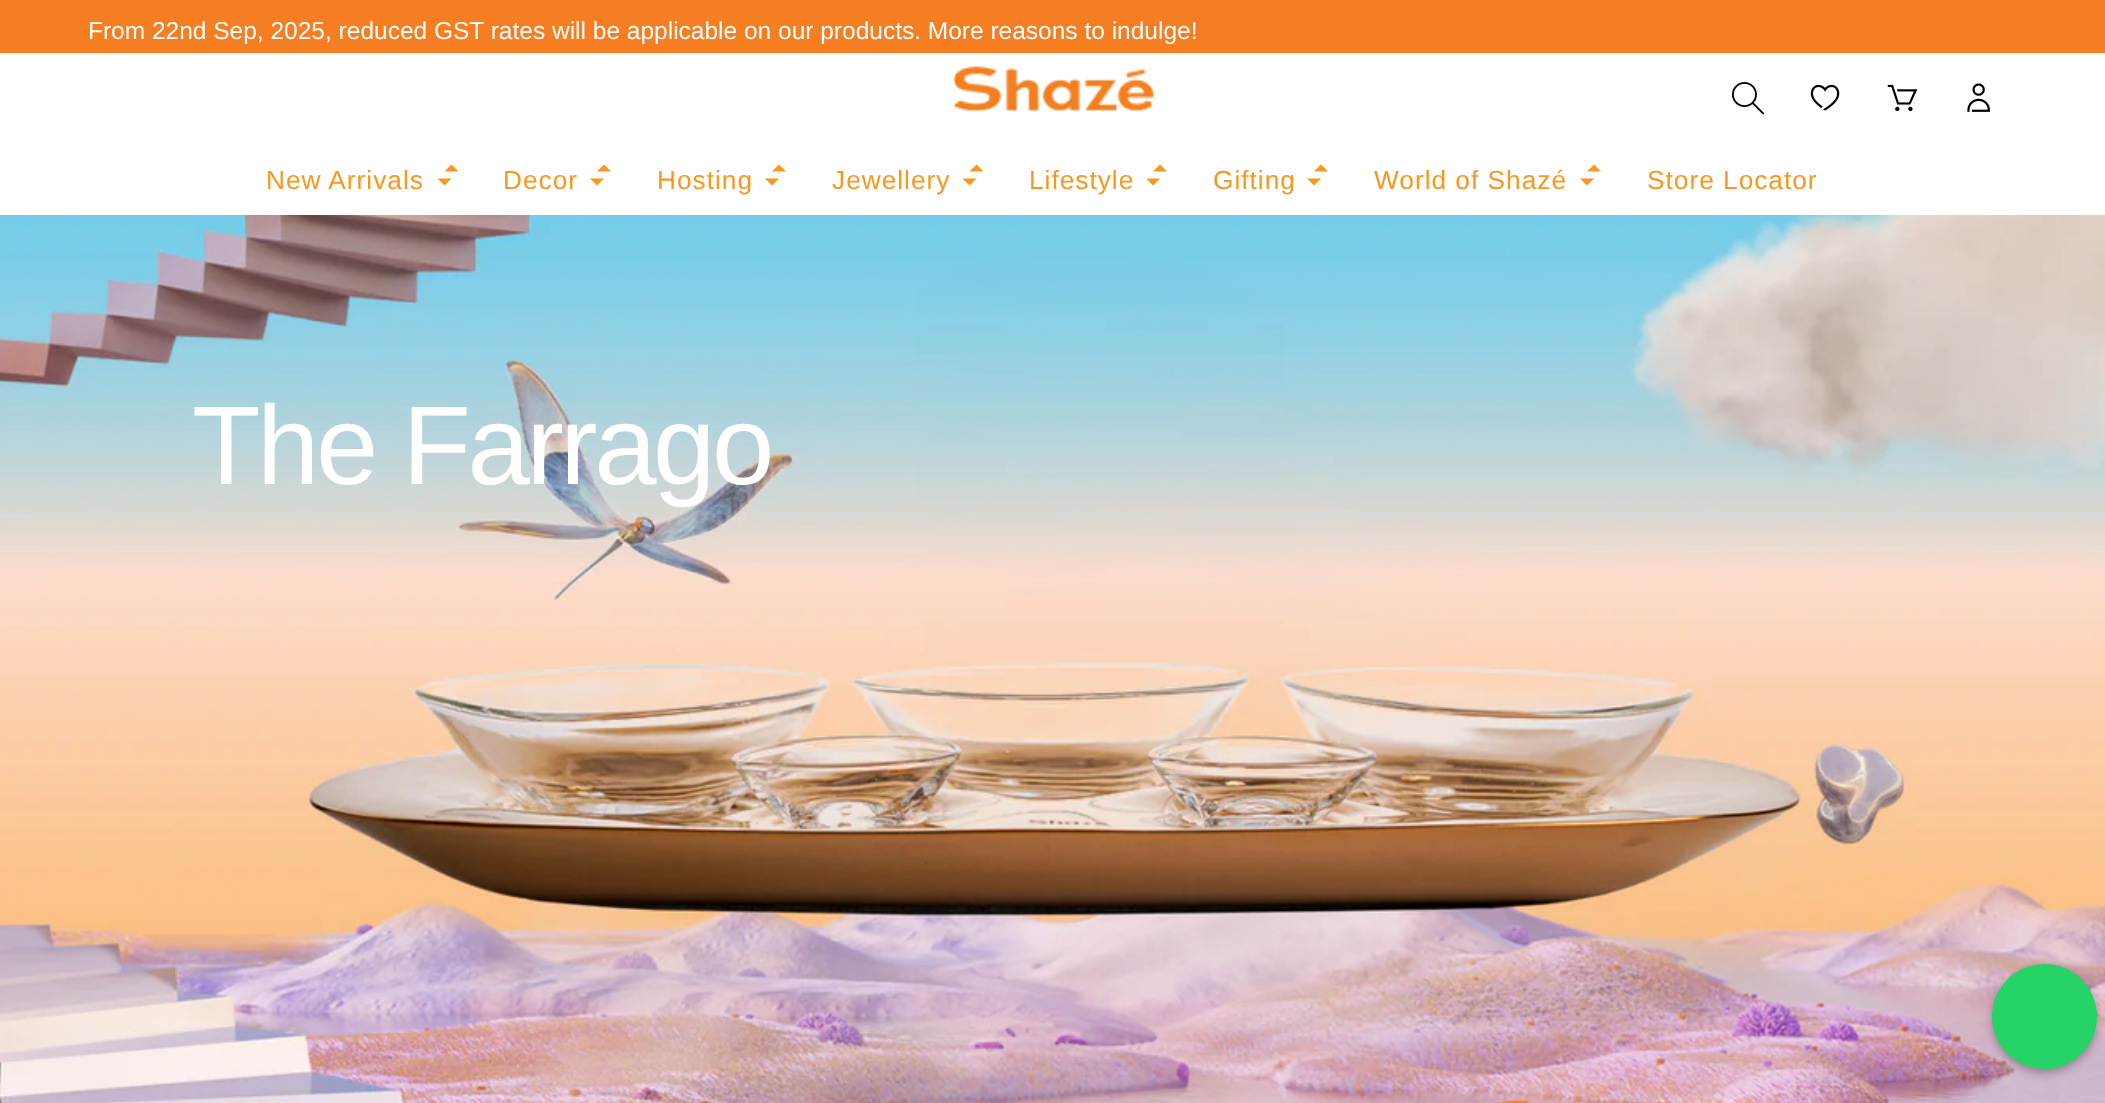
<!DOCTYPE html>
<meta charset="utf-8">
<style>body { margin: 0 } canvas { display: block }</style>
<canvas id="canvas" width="2105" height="1103"></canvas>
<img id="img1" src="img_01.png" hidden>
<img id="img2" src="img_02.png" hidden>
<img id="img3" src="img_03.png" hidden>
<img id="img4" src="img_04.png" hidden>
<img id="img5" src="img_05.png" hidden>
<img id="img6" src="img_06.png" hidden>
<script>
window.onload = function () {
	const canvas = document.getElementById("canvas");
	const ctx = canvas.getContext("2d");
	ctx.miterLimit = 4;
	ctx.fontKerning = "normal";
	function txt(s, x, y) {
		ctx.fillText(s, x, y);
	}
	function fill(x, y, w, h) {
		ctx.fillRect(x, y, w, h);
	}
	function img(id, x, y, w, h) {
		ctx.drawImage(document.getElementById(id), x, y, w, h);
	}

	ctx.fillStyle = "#FFFFFF";
	fill(0, 0, 2105, 1103);
	ctx.fillStyle = "#F67E22";
	fill(0, 0, 2105, 53);
	img("img1", 953, 66, 201, 45);
	img("img2", 1732, 82, 32, 33);
	img("img3", 1810, 84, 30, 27);
	img("img4", 1887, 84, 31, 28);
	img("img5", 1967, 83, 23, 29);
	ctx.fillStyle = "#F8971D";
	ctx.beginPath();
	ctx.moveTo(451.5, 164.5);
	ctx.lineTo(444.5, 171.5);
	ctx.lineTo(458.5, 171.5);
	ctx.closePath();
	ctx.fill();
	ctx.beginPath();
	ctx.moveTo(437.5, 178.5);
	ctx.lineTo(451.5, 178.5);
	ctx.lineTo(444.5, 185.5);
	ctx.closePath();
	ctx.fill();
	ctx.beginPath();
	ctx.moveTo(604, 164.5);
	ctx.lineTo(597, 171.5);
	ctx.lineTo(611, 171.5);
	ctx.closePath();
	ctx.fill();
	ctx.beginPath();
	ctx.moveTo(590, 178.5);
	ctx.lineTo(604, 178.5);
	ctx.lineTo(597, 185.5);
	ctx.closePath();
	ctx.fill();
	ctx.beginPath();
	ctx.moveTo(779, 164.5);
	ctx.lineTo(772, 171.5);
	ctx.lineTo(786, 171.5);
	ctx.closePath();
	ctx.fill();
	ctx.beginPath();
	ctx.moveTo(765, 178.5);
	ctx.lineTo(779, 178.5);
	ctx.lineTo(772, 185.5);
	ctx.closePath();
	ctx.fill();
	ctx.beginPath();
	ctx.moveTo(976.5, 164.5);
	ctx.lineTo(969.5, 171.5);
	ctx.lineTo(983.5, 171.5);
	ctx.closePath();
	ctx.fill();
	ctx.beginPath();
	ctx.moveTo(962.5, 178.5);
	ctx.lineTo(976.5, 178.5);
	ctx.lineTo(969.5, 185.5);
	ctx.closePath();
	ctx.fill();
	ctx.beginPath();
	ctx.moveTo(1160, 164.5);
	ctx.lineTo(1153, 171.5);
	ctx.lineTo(1167, 171.5);
	ctx.closePath();
	ctx.fill();
	ctx.beginPath();
	ctx.moveTo(1146, 178.5);
	ctx.lineTo(1160, 178.5);
	ctx.lineTo(1153, 185.5);
	ctx.closePath();
	ctx.fill();
	ctx.beginPath();
	ctx.moveTo(1321, 164.5);
	ctx.lineTo(1314, 171.5);
	ctx.lineTo(1328, 171.5);
	ctx.closePath();
	ctx.fill();
	ctx.beginPath();
	ctx.moveTo(1307, 178.5);
	ctx.lineTo(1321, 178.5);
	ctx.lineTo(1314, 185.5);
	ctx.closePath();
	ctx.fill();
	ctx.beginPath();
	ctx.moveTo(1594, 164.5);
	ctx.lineTo(1587, 171.5);
	ctx.lineTo(1601, 171.5);
	ctx.closePath();
	ctx.fill();
	ctx.beginPath();
	ctx.moveTo(1580, 178.5);
	ctx.lineTo(1594, 178.5);
	ctx.lineTo(1587, 185.5);
	ctx.closePath();
	ctx.fill();
	img("img6", 0, 215, 2105, 888);
	ctx.fillStyle = "rgba(0, 0, 0, 0.3)";
	ctx.filter = "blur(5px)";
	ctx.beginPath();
	ctx.roundRect(1992, 968, 105, 105, 52.5);
	ctx.fill();
	ctx.filter = "none";
	ctx.fillStyle = "#25D366";
	ctx.beginPath();
	ctx.arc(2044.5, 1016.5, 52.5, 0, Math.PI * 2);
	ctx.fill();
	ctx.font = "24.5px Liberation Sans";
	ctx.fillStyle = "#FFFFFF";
	txt("From 22nd Sep, 2025, reduced GST rates will be applicable on our products. More reasons to indulge!", 88, 39);
	ctx.letterSpacing = "1px";
	ctx.font = "26.25px Liberation Sans";
	ctx.fillStyle = "#F8971D";
	txt("New Arrivals", 266, 189);
	txt("Decor", 503, 189);
	txt("Hosting", 657, 189);
	txt("Jewellery", 832, 189);
	txt("Lifestyle", 1029, 189);
	txt("Gifting", 1213, 189);
	txt("World of Shazé", 1374, 189);
	txt("Store Locator", 1647, 189);
	ctx.letterSpacing = "-3.4px";
	ctx.font = "112px Liberation Sans";
	ctx.fillStyle = "#FFFFFF";
	txt("The Farrago", 192, 484);
};
</script>
